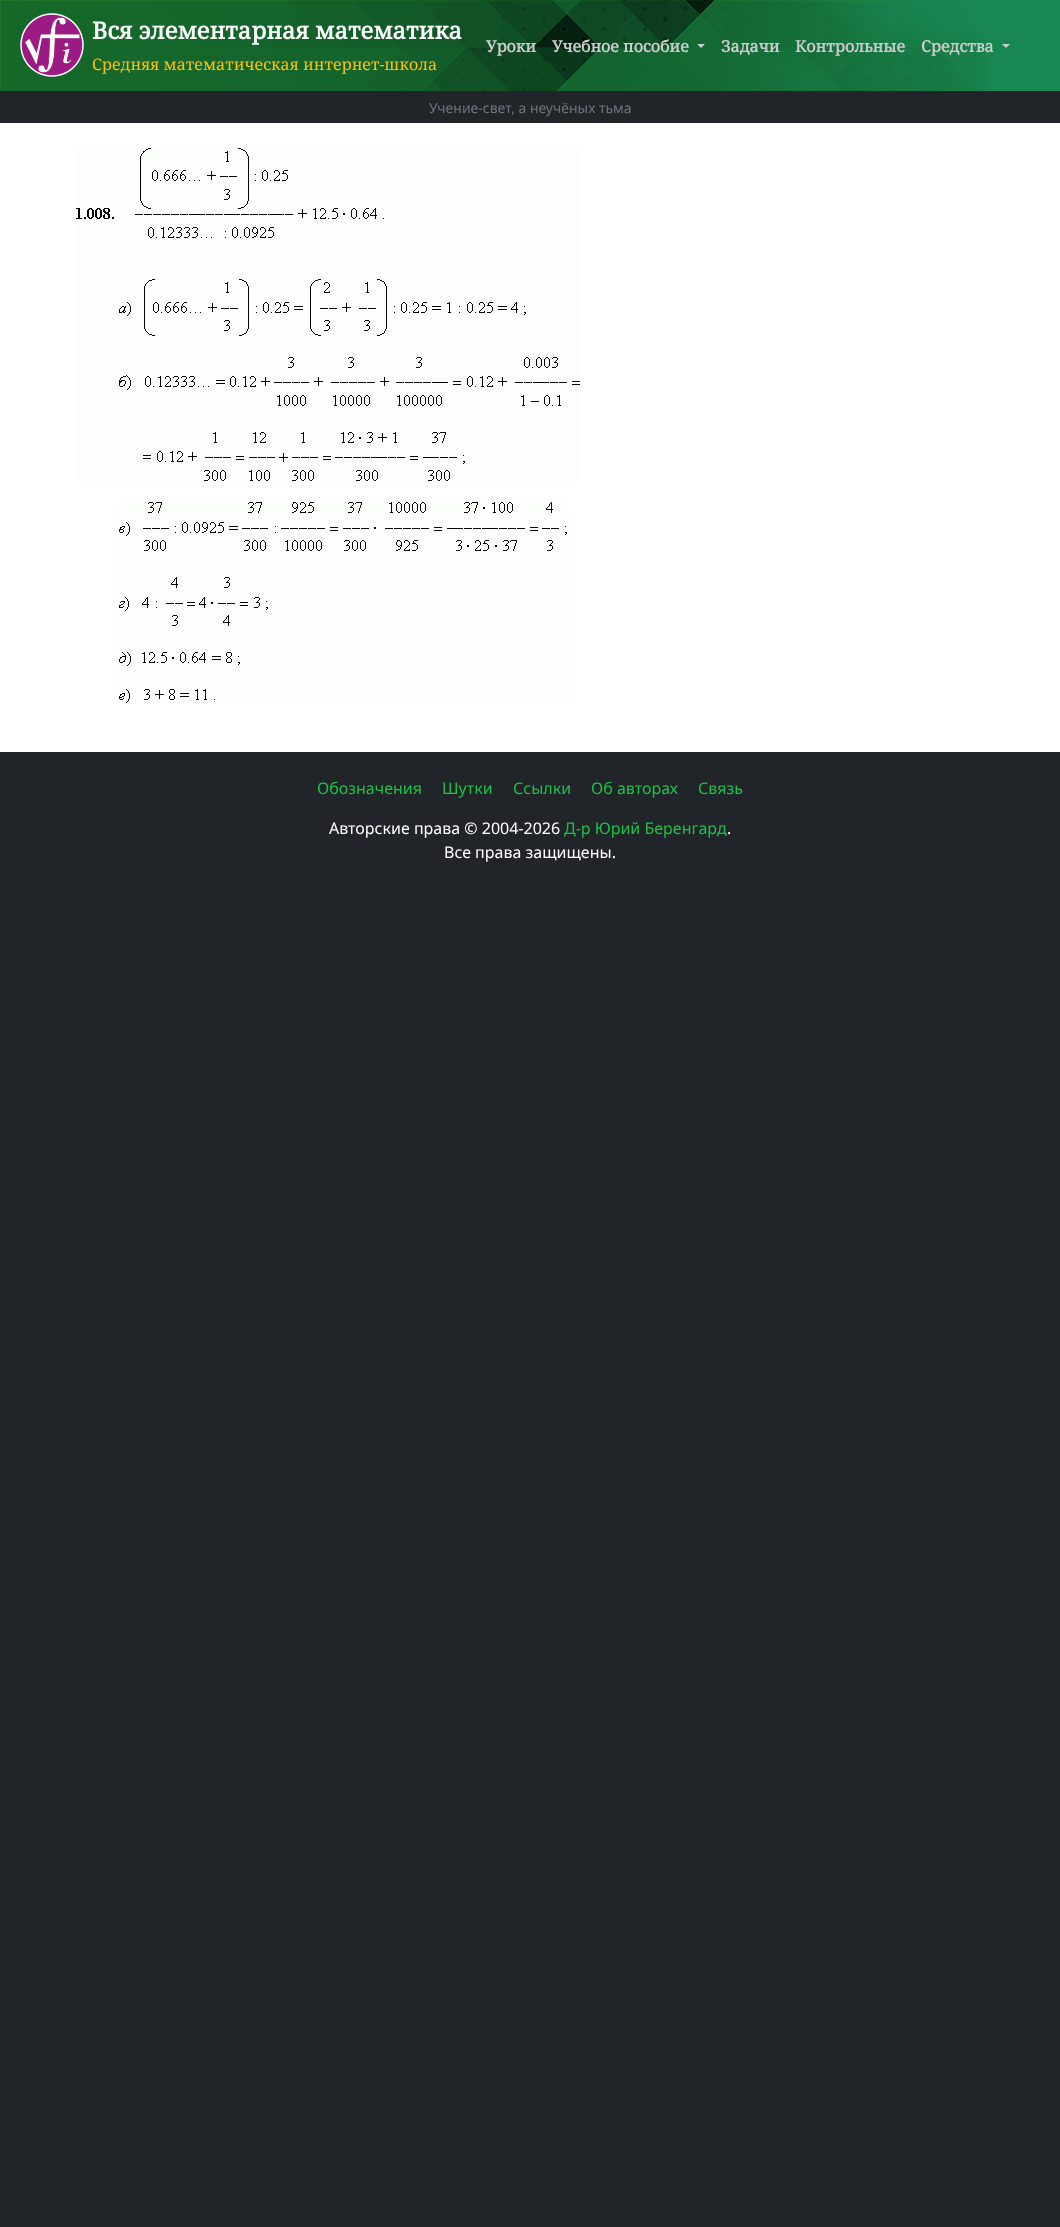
<!DOCTYPE html>
<meta charset="utf-8">
<style>body { margin: 0 } canvas { display: block }</style>
<canvas id="canvas" width="1060" height="2227"></canvas>
<img id="img1" src="img_01.png" hidden>
<img id="img2" src="img_02.png" hidden>
<img id="img3" src="img_03.png" hidden>
<img id="img4" src="img_04.png" hidden>
<script>
window.onload = function () {
	const canvas = document.getElementById("canvas");
	const ctx = canvas.getContext("2d");
	ctx.miterLimit = 4;
	ctx.fontKerning = "normal";
	function txt(s, x, y) {
		ctx.fillText(s, x, y);
	}
	function fill(x, y, w, h) {
		ctx.fillRect(x, y, w, h);
	}
	function img(id, x, y, w, h) {
		ctx.drawImage(document.getElementById(id), x, y, w, h);
	}

	ctx.fillStyle = "#212529";
	fill(0, 0, 1060, 2227);
	ctx.fillStyle = "#198754";
	fill(991, 0, 69, 91);
	img("img1", 0, 0, 991, 91);
	img("img2", 20, 13, 64, 64);
	ctx.fillStyle = "#CCCCCC";
	ctx.beginPath();
	ctx.moveTo(697, 44);
	ctx.lineTo(705, 44);
	ctx.lineTo(701, 48);
	ctx.closePath();
	ctx.fill();
	ctx.beginPath();
	ctx.moveTo(1002, 44);
	ctx.lineTo(1010, 44);
	ctx.lineTo(1006, 48);
	ctx.closePath();
	ctx.fill();
	ctx.fillStyle = "#FFFFFF";
	fill(0, 123, 1060, 629);
	img("img3", 76, 148, 504, 333);
	img("img4", 119, 502, 448, 201);
	ctx.font = "bold 23.6px Noto Serif";
	txt("Вся элементарная математика", 92, 39);
	ctx.font = "16px Noto Serif";
	ctx.fillStyle = "#FFC107";
	txt("Средняя математическая интернет-школа", 92, 70);
	ctx.font = "bold 16px Noto Serif";
	ctx.fillStyle = "#CCCCCC";
	txt("Уроки", 486, 52);
	txt("Учебное пособие", 552, 52);
	txt("Задачи", 721, 52);
	txt("Контрольные", 795, 52);
	txt("Средства", 921, 52);
	ctx.font = "14px Noto Sans";
	ctx.fillStyle = "#6C757D";
	txt("Учение-свет, а неучёных тьма", 429, 113);
	ctx.font = "16px Noto Sans";
	ctx.fillStyle = "#1DC146";
	txt("Обозначения", 317, 794);
	txt("Шутки", 442, 794);
	txt("Ссылки", 513, 794);
	txt("Об авторах", 591, 794);
	txt("Связь", 698, 794);
	ctx.fillStyle = "#FFFFFF";
	txt("Авторские права © 2004-2026", 329, 834);
	ctx.fillStyle = "#1DC146";
	txt("Д-р Юрий Беренгард", 564, 834);
	ctx.fillStyle = "#FFFFFF";
	txt(".", 727, 834);
	txt("Все права защищены.", 444, 858);
};
</script>
